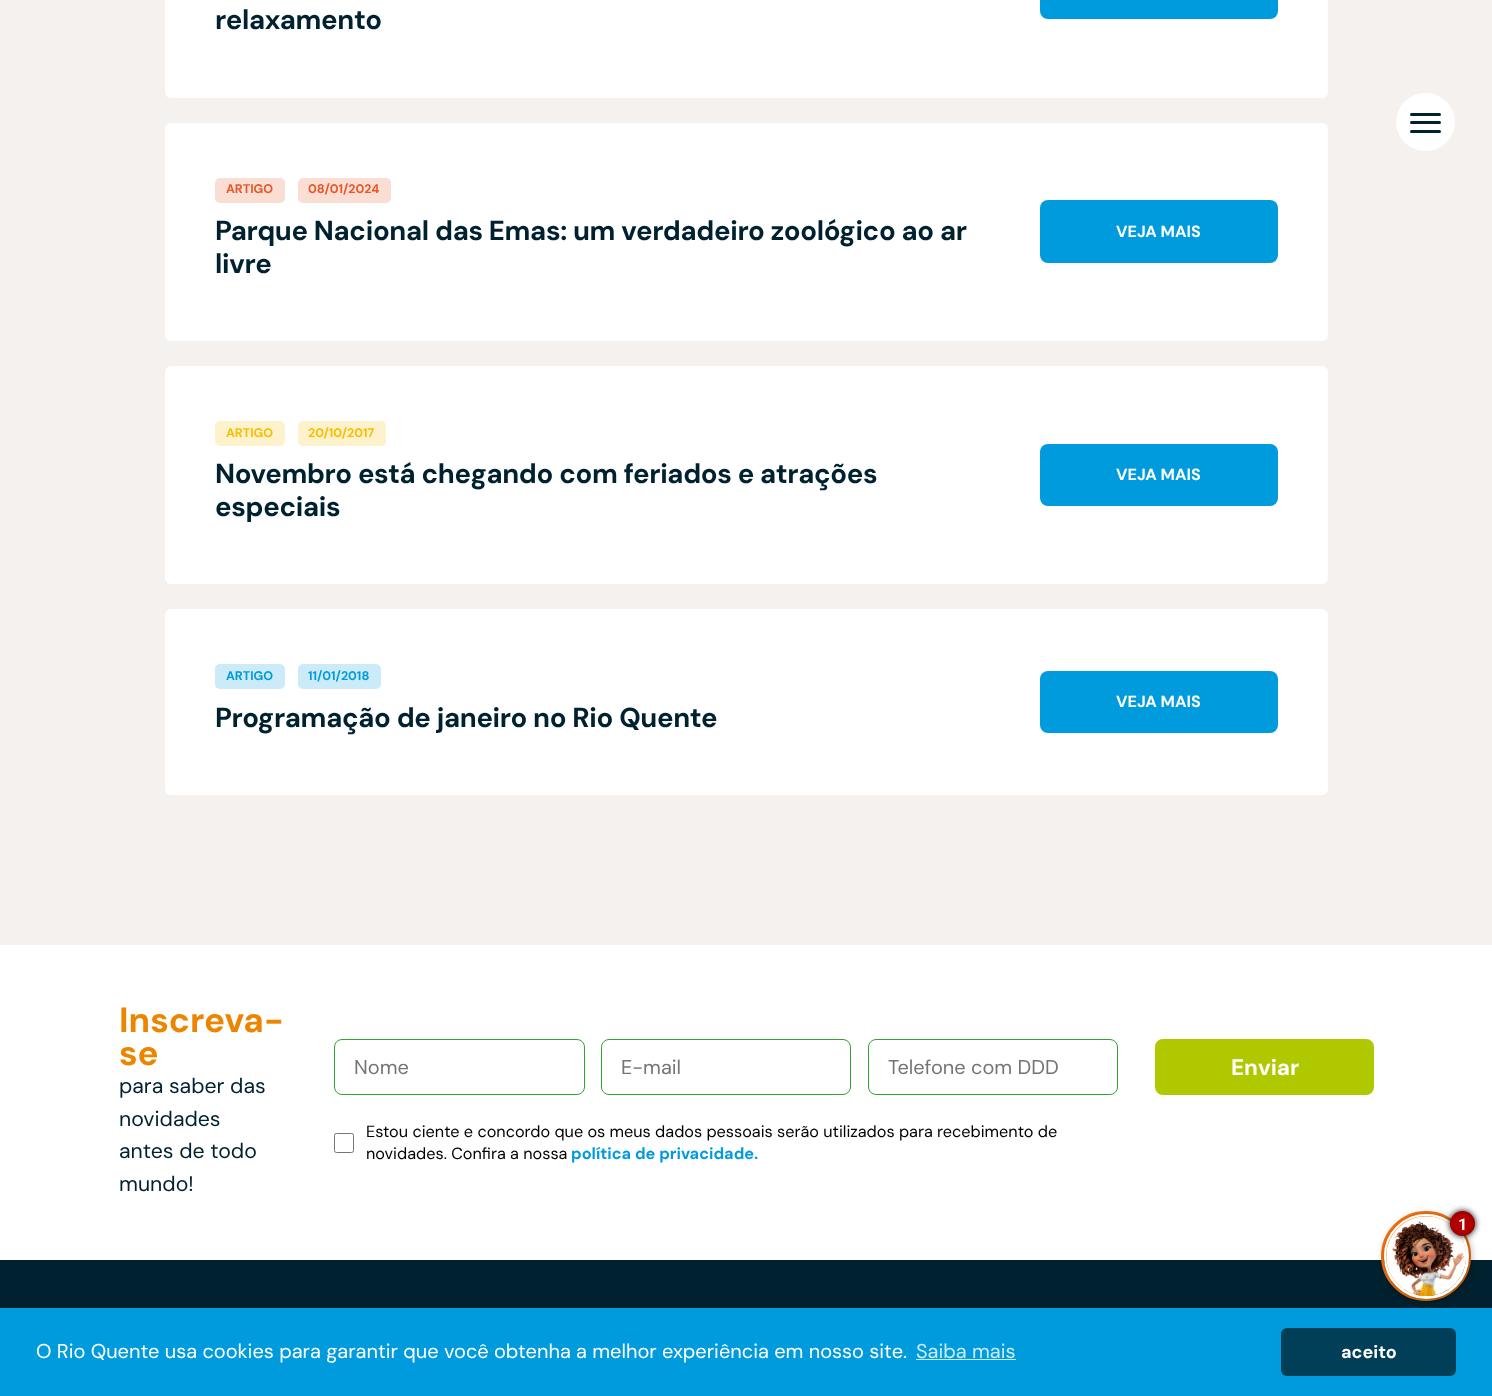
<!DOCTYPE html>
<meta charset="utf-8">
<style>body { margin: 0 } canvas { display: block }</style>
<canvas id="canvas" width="1492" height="1396"></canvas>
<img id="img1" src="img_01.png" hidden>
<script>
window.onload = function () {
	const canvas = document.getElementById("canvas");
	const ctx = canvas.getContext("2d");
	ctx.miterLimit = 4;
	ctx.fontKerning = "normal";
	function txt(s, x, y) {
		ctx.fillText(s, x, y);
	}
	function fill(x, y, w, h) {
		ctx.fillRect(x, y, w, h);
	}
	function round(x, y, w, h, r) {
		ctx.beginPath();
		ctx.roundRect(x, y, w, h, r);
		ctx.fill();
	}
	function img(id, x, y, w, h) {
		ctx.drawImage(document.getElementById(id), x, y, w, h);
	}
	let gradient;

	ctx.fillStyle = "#F5F1EE";
	fill(0, 0, 1492, 1396);
	ctx.fillStyle = "#FFFFFF";
	round(165, -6, 1163, 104, 6);
	gradient = ctx.createLinearGradient(1203, -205, 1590, 182);
	gradient.addColorStop(0, "#009BDD");
	gradient.addColorStop(0.5, "#009BDD");
	gradient.addColorStop(1, "#0066B0");
	ctx.fillStyle = gradient;
	round(1040, -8, 238, 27, 8);
	ctx.fillStyle = "#FFFFFF";
	round(165, 123, 1163, 218, 6);
	ctx.fillStyle = "#FADED4";
	round(215, 178, 70, 25, 5);
	round(298, 178, 93, 25, 5);
	gradient = ctx.createLinearGradient(1203, 38, 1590, 425);
	gradient.addColorStop(0, "#009BDD");
	gradient.addColorStop(0.5, "#009BDD");
	gradient.addColorStop(1, "#0066B0");
	ctx.fillStyle = gradient;
	round(1040, 200, 238, 63, 8);
	ctx.fillStyle = "#FFFFFF";
	round(165, 366, 1163, 218, 6);
	ctx.fillStyle = "#FDF2CC";
	round(215, 421, 70, 25, 5);
	round(298, 421, 88, 25, 5);
	gradient = ctx.createLinearGradient(1203, 281, 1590, 669);
	gradient.addColorStop(0, "#009BDD");
	gradient.addColorStop(0.5, "#009BDD");
	gradient.addColorStop(1, "#0066B0");
	ctx.fillStyle = gradient;
	round(1040, 444, 238, 62, 8);
	ctx.fillStyle = "#FFFFFF";
	round(165, 609, 1163, 186, 6);
	ctx.fillStyle = "#CCEBF8";
	round(215, 664, 70, 25, 5);
	round(298, 664, 83, 25, 5);
	gradient = ctx.createLinearGradient(1203, 508, 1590, 895);
	gradient.addColorStop(0, "#009BDD");
	gradient.addColorStop(0.5, "#009BDD");
	gradient.addColorStop(1, "#0066B0");
	ctx.fillStyle = gradient;
	round(1040, 671, 238, 62, 8);
	ctx.fillStyle = "#FFFFFF";
	round(1396, 93, 59, 58, 29);
	ctx.fillStyle = "#00212F";
	round(1410, 113, 31, 3, 1.5);
	round(1410, 121, 31, 3, 1.5);
	round(1410, 130, 31, 3, 1.5);
	fill(0, 1260, 1492, 48);
	ctx.fillStyle = "#FFFFFF";
	fill(0, 945, 1492, 315);
	ctx.beginPath();
	ctx.roundRect(334.5, 1039.5, 250, 55, 7.5);
	ctx.strokeStyle = "#31A430";
	ctx.stroke();
	ctx.beginPath();
	ctx.roundRect(601.5, 1039.5, 249, 55, 7.5);
	ctx.stroke();
	ctx.beginPath();
	ctx.roundRect(868.5, 1039.5, 249, 55, 7.5);
	ctx.stroke();
	ctx.beginPath();
	ctx.roundRect(334.5, 1133.5, 19, 19, 2);
	ctx.strokeStyle = "#767676";
	ctx.stroke();
	ctx.fillStyle = "#B0C800";
	round(1155, 1039, 219, 56, 8);
	ctx.beginPath();
	ctx.arc(1426, 1256, 43.5, 0, Math.PI * 2);
	ctx.strokeStyle = "#FF780F";
	ctx.lineWidth = 3;
	ctx.stroke();
	ctx.fillStyle = "#000000";
	ctx.filter = "blur(6px)";
	ctx.beginPath();
	ctx.roundRect(1389, 1219, 77, 77, 38.5);
	ctx.fill();
	ctx.filter = "none";
	ctx.beginPath();
	ctx.arc(1426.5, 1256.5, 41, 0, Math.PI * 2);
	ctx.strokeStyle = "#FFFFFF";
	ctx.stroke();
	ctx.fillStyle = "#FF780F";
	ctx.beginPath();
	ctx.arc(1426, 1256, 40, 0, Math.PI * 2);
	ctx.fill();
	img("img1", 1386, 1216, 80, 81);
	ctx.fillStyle = "#000000";
	ctx.filter = "blur(3px)";
	ctx.beginPath();
	ctx.roundRect(1450, 1211, 25, 25, 12.5);
	ctx.fill();
	ctx.filter = "none";
	ctx.fillStyle = "#B60000";
	ctx.beginPath();
	ctx.arc(1462.5, 1223.5, 11, 0, Math.PI * 2);
	ctx.fill();
	ctx.strokeStyle = "#A30000";
	ctx.stroke();
	ctx.fillStyle = "#009BDD";
	fill(0, 1308, 1492, 88);
	ctx.fillStyle = "#CCEBF8";
	fill(916, 1359, 100, 1);
	ctx.fillStyle = "#003F57";
	round(1281, 1328, 175, 48, 6);
	ctx.letterSpacing = "-0.33px";
	ctx.font = "bold 27.5px DM Sans";
	ctx.fillStyle = "#00212F";
	txt("relaxamento", 215, 29);
	ctx.letterSpacing = "0px";
	ctx.font = "bold 12.5px DM Sans";
	ctx.fillStyle = "#E55829";
	txt("ARTIGO", 226, 193);
	txt("08/01/2024", 308, 193);
	ctx.letterSpacing = "-0.33px";
	ctx.font = "bold 27.5px DM Sans";
	ctx.fillStyle = "#00212F";
	txt("Parque Nacional das Emas: um verdadeiro zoológico ao ar", 215, 240);
	txt("livre", 215, 273);
	ctx.letterSpacing = "0px";
	ctx.font = "bold 16.25px DM Sans";
	ctx.fillStyle = "#FFFFFF";
	txt("VEJA MAIS", 1116, 237);
	ctx.font = "bold 12.5px DM Sans";
	ctx.fillStyle = "#F7BD00";
	txt("ARTIGO", 226, 437);
	txt("20/10/2017", 308, 437);
	ctx.letterSpacing = "-0.33px";
	ctx.font = "bold 27.5px DM Sans";
	ctx.fillStyle = "#00212F";
	txt("Novembro está chegando com feriados e atrações", 215, 483);
	txt("especiais", 215, 516);
	ctx.letterSpacing = "0px";
	ctx.font = "bold 16.25px DM Sans";
	ctx.fillStyle = "#FFFFFF";
	txt("VEJA MAIS", 1116, 480);
	ctx.font = "bold 12.5px DM Sans";
	ctx.fillStyle = "#009BDD";
	txt("ARTIGO", 226, 680);
	txt("11/01/2018", 308, 680);
	ctx.letterSpacing = "-0.33px";
	ctx.font = "bold 27.5px DM Sans";
	ctx.fillStyle = "#00212F";
	txt("Programação de janeiro no Rio Quente", 215, 727);
	ctx.letterSpacing = "0px";
	ctx.font = "bold 16.25px DM Sans";
	ctx.fillStyle = "#FFFFFF";
	txt("VEJA MAIS", 1116, 707);
	ctx.font = "bold 35px DM Sans";
	ctx.fillStyle = "#EC8600";
	txt("Inscreva-", 119, 1032);
	txt("se", 119, 1065);
	ctx.font = "21.25px DM Sans";
	ctx.fillStyle = "#00212F";
	txt("para saber das", 119, 1093);
	txt("novidades", 119, 1126);
	txt("antes de todo", 119, 1158);
	txt("mundo!", 119, 1191);
	ctx.font = "20px DM Sans";
	ctx.fillStyle = "#757575";
	txt("Nome", 354, 1074);
	txt("E-mail", 621, 1074);
	txt("Telefone com DDD", 888, 1074);
	ctx.font = "16.25px DM Sans";
	ctx.fillStyle = "#000000";
	txt("Estou ciente e concordo que os meus dados pessoais serão utilizados para recebimento de", 366, 1137);
	txt("novidades. Confira a nossa", 366, 1159);
	ctx.font = "bold 16.25px DM Sans";
	ctx.fillStyle = "#009BDD";
	txt("política de privacidade.", 571, 1159);
	ctx.font = "bold 22.5px DM Sans";
	ctx.fillStyle = "#FFFFFF";
	txt("Enviar", 1231, 1075);
	ctx.font = "bold 16.25px Roboto";
	txt("1", 1458, 1230);
	ctx.font = "20px DM Sans";
	txt("O Rio Quente usa cookies para garantir que você obtenha a melhor experiência em nosso site.", 36, 1358);
	ctx.fillStyle = "#CCEBF8";
	txt("Saiba mais", 916, 1358);
	ctx.font = "bold 18px DM Sans";
	ctx.fillStyle = "#FFFFFF";
	txt("aceito", 1341, 1358);
};
</script>
